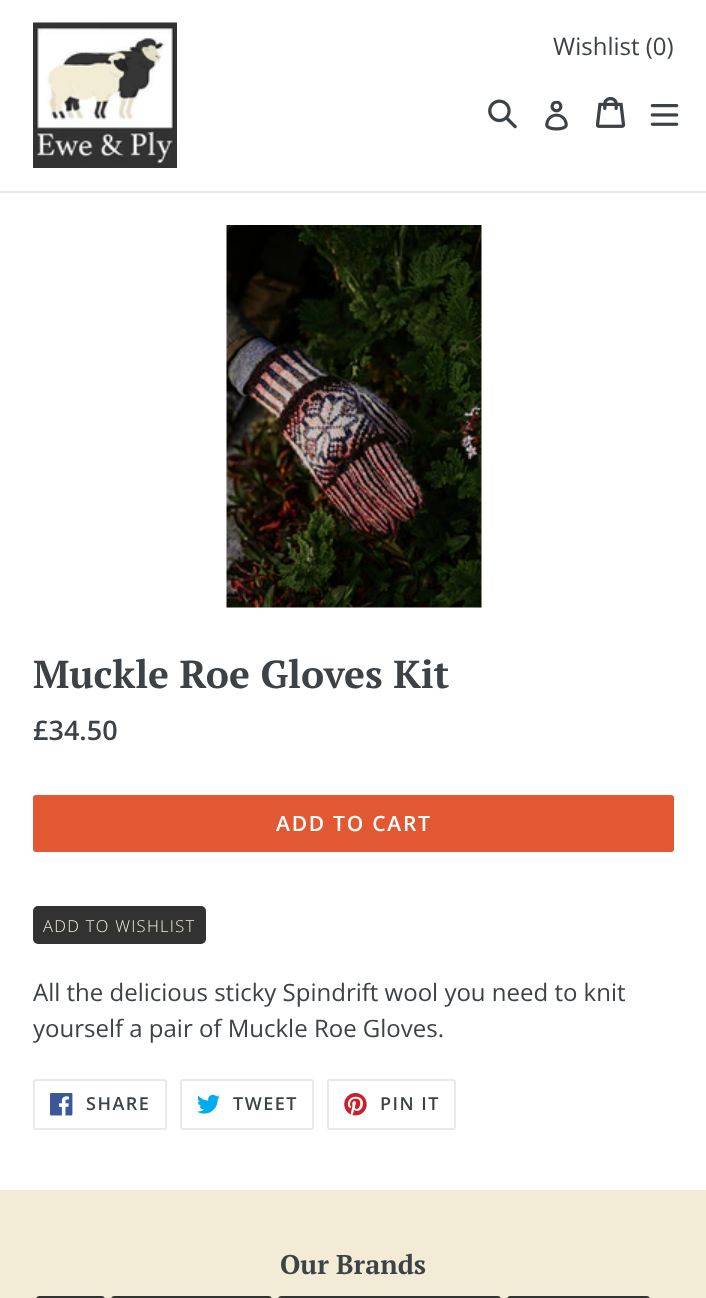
<!DOCTYPE html>
<meta charset="utf-8">
<style>body { margin: 0 } canvas { display: block }</style>
<canvas id="canvas" width="706" height="1298"></canvas>
<img id="img1" src="img_01.png" hidden>
<img id="img2" src="img_02.png" hidden>
<img id="img3" src="img_03.png" hidden>
<img id="img4" src="img_04.png" hidden>
<img id="img5" src="img_05.png" hidden>
<img id="img6" src="img_06.png" hidden>
<img id="img7" src="img_07.png" hidden>
<img id="img8" src="img_08.png" hidden>
<img id="img9" src="img_09.png" hidden>
<script>
window.onload = function () {
	const canvas = document.getElementById("canvas");
	const ctx = canvas.getContext("2d");
	ctx.miterLimit = 4;
	ctx.fontKerning = "normal";
	function txt(s, x, y) {
		ctx.fillText(s, x, y);
	}
	function fill(x, y, w, h) {
		ctx.fillRect(x, y, w, h);
	}
	function round(x, y, w, h, r) {
		ctx.beginPath();
		ctx.roundRect(x, y, w, h, r);
		ctx.fill();
	}
	function img(id, x, y, w, h) {
		ctx.drawImage(document.getElementById(id), x, y, w, h);
	}

	ctx.fillStyle = "#FFFFFF";
	fill(0, 0, 706, 1298);
	ctx.fillStyle = "#E8E9EB";
	fill(0, 191, 706, 2);
	img("img1", 33, 22, 144, 146);
	img("img2", 488, 99, 29, 30);
	img("img3", 545, 101, 23, 30);
	img("img4", 596, 96, 30, 32);
	img("img5", 650, 104, 29, 22);
	img("img6", 226, 225, 256, 383);
	ctx.fillStyle = "#E15833";
	round(33, 795, 641, 57, 3);
	ctx.fillStyle = "#323232";
	round(33, 906, 173, 38, 5);
	ctx.beginPath();
	ctx.roundRect(34, 1080, 132, 49, 2);
	ctx.strokeStyle = "#E8E9EB";
	ctx.lineWidth = 2;
	ctx.stroke();
	img("img7", 50, 1093, 23, 23);
	ctx.beginPath();
	ctx.roundRect(181, 1080, 132, 49, 2);
	ctx.stroke();
	img("img8", 197, 1094, 23, 20);
	ctx.beginPath();
	ctx.roundRect(328, 1080, 127, 49, 2);
	ctx.stroke();
	img("img9", 344, 1093, 23, 23);
	ctx.fillStyle = "#F2ECD6";
	fill(0, 1190, 706, 108);
	ctx.fillStyle = "#323232";
	round(36, 1296, 69, 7, 5);
	round(111, 1296, 161, 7, 5);
	round(278, 1296, 223, 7, 5);
	round(507, 1296, 143, 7, 5);
	ctx.font = "24px Open Sans";
	ctx.fillStyle = "#3D4246";
	txt("Wishlist (0)", 553, 55);
	ctx.font = "bold 39px PT Serif";
	txt("Muckle Roe Gloves Kit", 33, 688);
	ctx.font = "600 27px Open Sans";
	txt("£34.50", 33, 740);
	ctx.letterSpacing = "1.75px";
	ctx.font = "600 21px Open Sans";
	ctx.fillStyle = "#FFFFFF";
	txt("ADD TO CART", 276, 831);
	ctx.letterSpacing = "1.3px";
	ctx.font = "300 16.5px Open Sans";
	ctx.fillStyle = "#F2ECD6";
	txt("ADD TO WISHLIST", 43, 932);
	ctx.letterSpacing = "0px";
	ctx.font = "24px Open Sans";
	ctx.fillStyle = "#3D4246";
	txt("All the delicious sticky Spindrift wool you need to knit", 33, 1001);
	txt("yourself a pair of Muckle Roe Gloves.", 33, 1037);
	ctx.letterSpacing = "1.5px";
	ctx.font = "600 18px Open Sans";
	txt("SHARE", 86, 1110);
	txt("TWEET", 233, 1110);
	txt("PIN IT", 380, 1110);
	ctx.letterSpacing = "0px";
	ctx.font = "bold 27px PT Serif";
	txt("Our Brands", 280, 1274);
};
</script>
